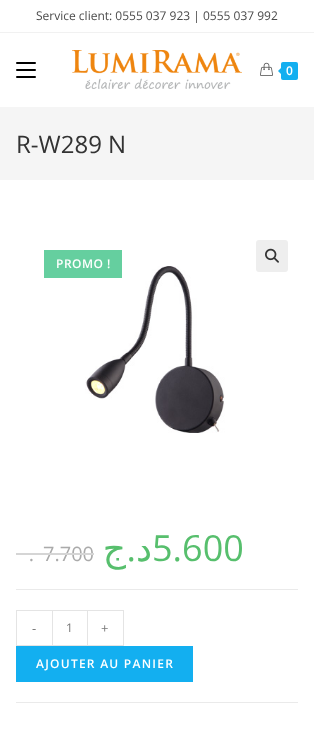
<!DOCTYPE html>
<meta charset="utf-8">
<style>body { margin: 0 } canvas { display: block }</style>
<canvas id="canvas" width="314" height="749"></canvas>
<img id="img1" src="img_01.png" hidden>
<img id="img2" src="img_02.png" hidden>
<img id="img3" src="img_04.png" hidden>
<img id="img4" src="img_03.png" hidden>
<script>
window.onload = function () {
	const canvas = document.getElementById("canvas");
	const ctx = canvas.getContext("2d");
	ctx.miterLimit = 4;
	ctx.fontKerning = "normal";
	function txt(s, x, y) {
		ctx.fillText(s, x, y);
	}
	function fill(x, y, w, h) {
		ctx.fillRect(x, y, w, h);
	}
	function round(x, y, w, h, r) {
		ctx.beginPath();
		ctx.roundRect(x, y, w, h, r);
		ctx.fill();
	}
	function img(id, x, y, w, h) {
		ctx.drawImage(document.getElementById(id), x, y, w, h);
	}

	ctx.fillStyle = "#FFFFFF";
	fill(0, 0, 314, 749);
	ctx.fillStyle = "#F1F1F1";
	fill(0, 32, 314, 1);
	ctx.fillStyle = "#000000";
	round(16, 69, 20, 2, 1);
	round(16, 62, 20, 2, 1);
	round(16, 76, 20, 2, 1);
	img("img1", 72, 50, 170, 39);
	img("img2", 260, 62, 13, 14);
	ctx.fillStyle = "#13AFF0";
	round(281, 62, 17, 18, 2);
	ctx.beginPath();
	ctx.moveTo(283, 66);
	ctx.lineTo(283, 76);
	ctx.lineTo(278, 71);
	ctx.closePath();
	ctx.fill();
	ctx.fillStyle = "#F5F5F5";
	fill(0, 107, 314, 73);
	img("img3", 85, 266, 140, 167);
	ctx.fillStyle = "#65CF9F";
	fill(44, 250, 78, 28);
	ctx.fillStyle = "#EEEEEE";
	round(256, 240, 32, 32, 3);
	img("img4", 265, 248, 14, 15);
	ctx.fillStyle = "#EAEAEA";
	fill(16, 589, 282, 1);
	fill(16, 702, 282, 1);
	ctx.fillStyle = "#E4E4E4";
	fill(16, 610, 36, 1);
	fill(16, 645, 36, 1);
	fill(16, 610, 1, 36);
	ctx.strokeStyle = "#E4E4E4";
	ctx.strokeRect(52.5, 610.5, 35, 35);
	fill(88, 610, 36, 1);
	fill(123, 610, 1, 36);
	fill(88, 645, 36, 1);
	ctx.fillStyle = "#13AFF0";
	fill(16, 646, 177, 36);
	ctx.font = "12px Open Sans";
	ctx.fillStyle = "#4A4A4A";
	txt("Service client: 0555 037 923 | 0555 037 992", 36, 20);
	ctx.letterSpacing = "1px";
	ctx.font = "600 12px Open Sans";
	ctx.fillStyle = "#FFFFFF";
	txt("0", 286, 75);
	ctx.letterSpacing = "0px";
	ctx.font = "24px Open Sans";
	ctx.fillStyle = "#333333";
	txt("R-W289 N", 16, 153);
	ctx.letterSpacing = "0.5px";
	ctx.font = "600 12px Open Sans";
	ctx.fillStyle = "#FFFFFF";
	txt("PROMO !", 56, 268);
	ctx.letterSpacing = "0px";
	ctx.direction = "rtl";
	ctx.font = "20px Open Sans";
	ctx.fillStyle = "#AAAAAA";
	txt(".", 34, 561);
	ctx.direction = "ltr";
	txt("7.700", 43, 561);
	ctx.fillStyle = "#D5D5D5";
	fill(16, 553, 78, 2);
	ctx.direction = "rtl";
	ctx.font = "36px DejaVu Sans";
	ctx.fillStyle = "#57BF6D";
	txt("ج", 126, 561);
	ctx.font = "36px Open Sans";
	txt(".", 136, 561);
	ctx.font = "36px DejaVu Sans";
	txt("د", 152, 561);
	ctx.direction = "ltr";
	ctx.font = "36px Open Sans";
	txt("5.600", 152, 561);
	ctx.font = "13px Open Sans";
	ctx.fillStyle = "#777777";
	txt("-", 32, 633);
	ctx.font = "12px Open Sans";
	txt("1", 66, 632);
	ctx.font = "13px Open Sans";
	txt("+", 101, 633);
	ctx.letterSpacing = "1.25px";
	ctx.font = "600 12px Open Sans";
	ctx.fillStyle = "#FFFFFF";
	txt("AJOUTER AU PANIER", 36, 668);
};
</script>
